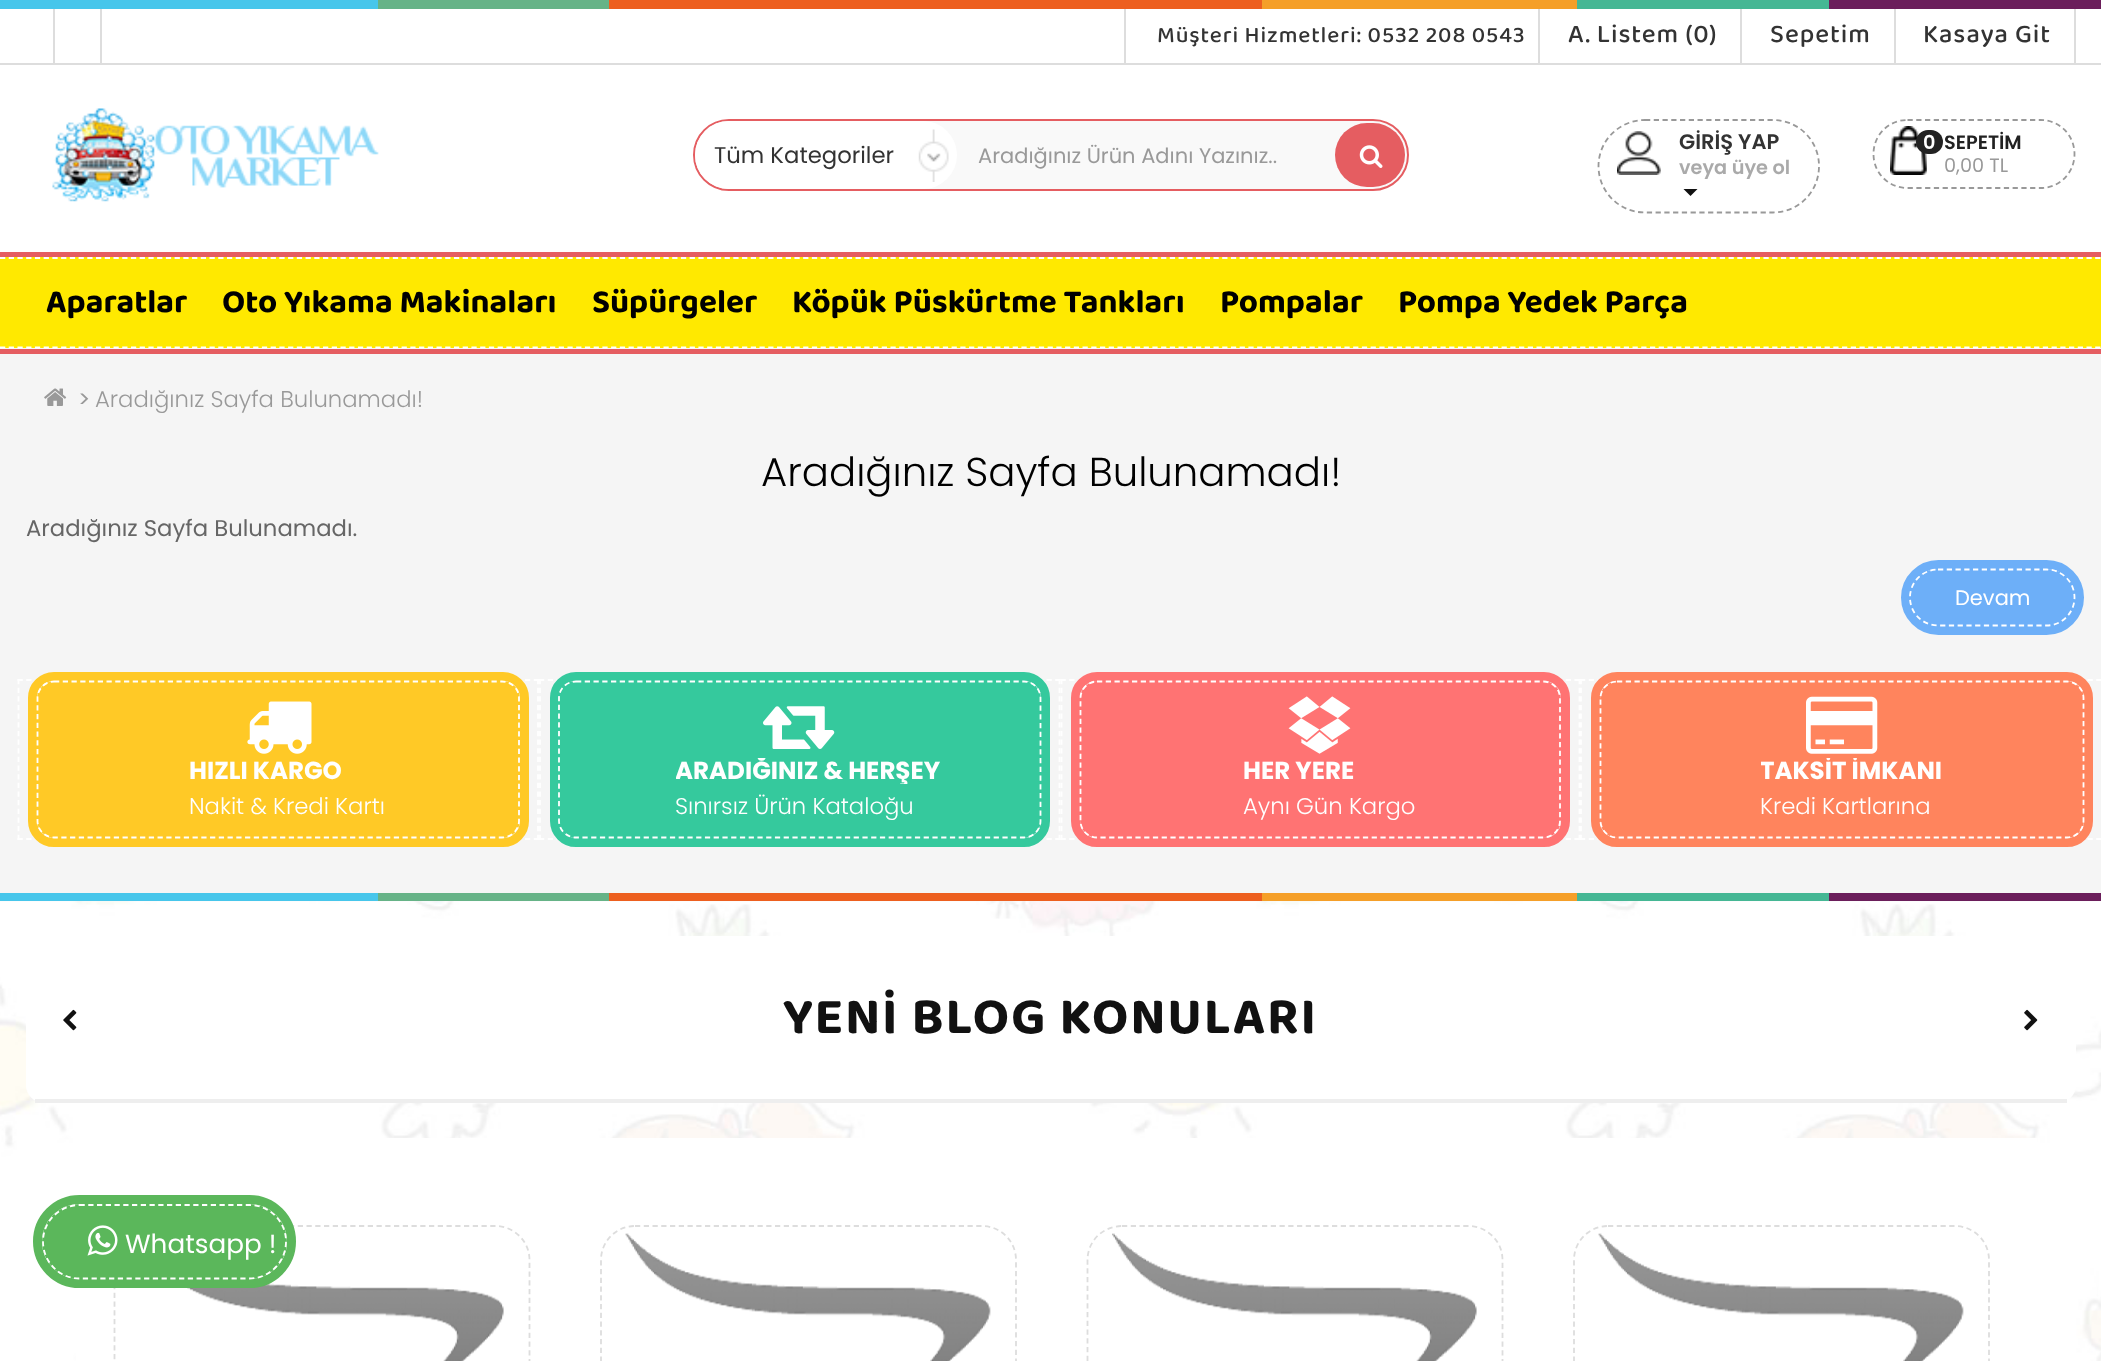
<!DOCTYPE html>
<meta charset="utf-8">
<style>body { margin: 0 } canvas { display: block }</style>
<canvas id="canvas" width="2101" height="1361"></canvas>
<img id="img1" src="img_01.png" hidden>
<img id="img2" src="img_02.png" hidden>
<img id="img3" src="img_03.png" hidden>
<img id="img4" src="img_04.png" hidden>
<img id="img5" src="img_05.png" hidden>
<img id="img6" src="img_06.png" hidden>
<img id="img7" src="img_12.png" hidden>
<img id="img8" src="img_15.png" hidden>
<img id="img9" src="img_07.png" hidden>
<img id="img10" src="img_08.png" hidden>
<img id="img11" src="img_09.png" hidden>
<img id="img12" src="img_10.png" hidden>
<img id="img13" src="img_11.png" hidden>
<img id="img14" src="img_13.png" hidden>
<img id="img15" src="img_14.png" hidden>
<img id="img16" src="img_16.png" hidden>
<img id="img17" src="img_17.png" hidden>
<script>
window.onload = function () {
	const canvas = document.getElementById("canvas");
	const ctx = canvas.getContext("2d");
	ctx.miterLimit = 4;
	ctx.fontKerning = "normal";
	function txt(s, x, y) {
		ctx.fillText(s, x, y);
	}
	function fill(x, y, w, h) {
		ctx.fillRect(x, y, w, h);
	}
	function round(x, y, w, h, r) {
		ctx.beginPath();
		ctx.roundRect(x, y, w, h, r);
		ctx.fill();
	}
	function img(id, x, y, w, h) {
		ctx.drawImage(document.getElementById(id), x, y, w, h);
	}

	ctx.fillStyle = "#F5F5F5";
	fill(0, 0, 2101, 1361);
	ctx.fillStyle = "#47C6EB";
	fill(0, 0, 378, 9);
	ctx.fillStyle = "#66B387";
	fill(378, 0, 231, 9);
	ctx.fillStyle = "#ED5F1F";
	fill(609, 0, 653, 9);
	ctx.fillStyle = "#F59F28";
	fill(1262, 0, 315, 9);
	ctx.fillStyle = "#45B794";
	fill(1577, 0, 252, 9);
	ctx.fillStyle = "#6B1E5B";
	fill(1829, 0, 272, 9);
	ctx.fillStyle = "#FFFFFF";
	fill(0, 9, 2101, 54);
	ctx.fillStyle = "#DDDDDD";
	fill(0, 63, 2101, 2);
	fill(100, 9, 2, 54);
	fill(53, 9, 2, 54);
	fill(1538, 9, 2, 54);
	fill(1124, 9, 2, 54);
	fill(1740, 9, 2, 54);
	fill(1894, 9, 2, 54);
	fill(2074, 9, 2, 54);
	ctx.fillStyle = "#FFFFFF";
	fill(0, 65, 2101, 187);
	img("img1", 52, 108, 327, 94);
	ctx.fillStyle = "#F9F9F9";
	ctx.beginPath();
	ctx.roundRect(694, 120, 714, 70, 35);
	ctx.fill();
	ctx.strokeStyle = "#E55D61";
	ctx.lineWidth = 2;
	ctx.stroke();
	ctx.fillStyle = "#FFFFFF";
	round(695, 121, 262, 68, 34);
	img("img2", 918, 129, 31, 53);
	ctx.fillStyle = "#E55D61";
	round(1335, 123, 70, 64, 32);
	img("img3", 1359, 145, 24, 23);
	img("img4", 1617, 131, 44, 44);
	ctx.beginPath();
	ctx.moveTo(1645, 120);
	ctx.lineTo(1773, 120);
	ctx.bezierCurveTo(1798.5, 120, 1819, 140.5, 1819, 166);
	ctx.bezierCurveTo(1819, 192, 1798.5, 212.5, 1773, 212.5);
	ctx.lineTo(1645, 212.5);
	ctx.bezierCurveTo(1619.5, 212.5, 1598.5, 192, 1598.5, 166);
	ctx.bezierCurveTo(1598.5, 140.5, 1619.5, 120, 1645, 120);
	ctx.closePath();
	ctx.strokeStyle = "#999999";
	ctx.lineWidth = 1.8;
	ctx.setLineDash([5.25, 3.5]);
	ctx.stroke();
	ctx.fillStyle = "#111111";
	ctx.beginPath();
	ctx.moveTo(1683.5, 189);
	ctx.lineTo(1697.5, 189);
	ctx.lineTo(1690.5, 196);
	ctx.closePath();
	ctx.fill();
	ctx.beginPath();
	ctx.moveTo(1907.5, 120);
	ctx.lineTo(2040.5, 120);
	ctx.bezierCurveTo(2059.5, 120, 2074.5, 135, 2074.5, 154);
	ctx.bezierCurveTo(2074.5, 173, 2059.5, 188, 2040.5, 188);
	ctx.lineTo(1907.5, 188);
	ctx.bezierCurveTo(1888.5, 188, 1873.5, 173, 1873.5, 154);
	ctx.bezierCurveTo(1873.5, 135, 1888.5, 120, 1907.5, 120);
	ctx.closePath();
	ctx.stroke();
	img("img5", 1890, 126, 37, 49);
	ctx.fillStyle = "#222222";
	round(1916, 130, 27, 24, 12);
	ctx.strokeStyle = "#E55D61";
	ctx.lineWidth = 5;
	ctx.setLineDash([]);
	ctx.strokeRect(-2.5, 254.5, 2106, 97);
	ctx.fillStyle = "#FFE900";
	fill(0, 257, 2101, 91);
	ctx.beginPath();
	ctx.moveTo(0, 258);
	ctx.lineTo(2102, 258);
	ctx.strokeStyle = "#FFFFFF";
	ctx.lineWidth = 1.8;
	ctx.setLineDash([5.25, 3.48]);
	ctx.stroke();
	ctx.beginPath();
	ctx.moveTo(0, 347.5);
	ctx.lineTo(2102, 347.5);
	ctx.stroke();
	img("img6", 44, 388, 23, 18);
	ctx.beginPath();
	ctx.roundRect(1905.5, 564.5, 174, 66, 33);
	ctx.strokeStyle = "#6DAFF8";
	ctx.lineWidth = 9;
	ctx.setLineDash([]);
	ctx.stroke();
	ctx.fillStyle = "#6DAFF8";
	round(1909, 569, 167, 58, 29);
	ctx.beginPath();
	ctx.moveTo(1938, 569.5);
	ctx.lineTo(2046.5, 569.5);
	ctx.bezierCurveTo(2062, 569.5, 2074.5, 582, 2074.5, 597.5);
	ctx.bezierCurveTo(2074.5, 613, 2062, 625.5, 2046.5, 625.5);
	ctx.lineTo(1938, 625.5);
	ctx.bezierCurveTo(1922.5, 625.5, 1910, 613, 1910, 597.5);
	ctx.bezierCurveTo(1910, 582, 1922.5, 569.5, 1938, 569.5);
	ctx.closePath();
	ctx.strokeStyle = "#FFFFFF";
	ctx.lineWidth = 1.8;
	ctx.setLineDash([5.25, 3.5]);
	ctx.stroke();
	img("img7", 0, 901, 2101, 460);
	ctx.fillStyle = "#FFFFFF";
	fill(76, 1138, 1961, 223);
	ctx.beginPath();
	ctx.moveTo(149, 1226);
	ctx.lineTo(495, 1226);
	ctx.bezierCurveTo(514, 1226, 529.5, 1241, 529.5, 1260);
	ctx.lineTo(529.5, 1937);
	ctx.bezierCurveTo(529.5, 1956, 514, 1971.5, 495, 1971.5);
	ctx.lineTo(149, 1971.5);
	ctx.bezierCurveTo(130, 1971.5, 114.5, 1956, 114.5, 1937);
	ctx.lineTo(114.5, 1260);
	ctx.bezierCurveTo(114.5, 1241, 130, 1226, 149, 1226);
	ctx.closePath();
	ctx.strokeStyle = "#DDDDDD";
	ctx.stroke();
	img("img8", 187, 1283, 317, 78);
	ctx.beginPath();
	ctx.roundRect(37.5, 1199.5, 254, 84, 42);
	ctx.strokeStyle = "#5BB75B";
	ctx.lineWidth = 9;
	ctx.setLineDash([]);
	ctx.stroke();
	ctx.fillStyle = "#5BB75B";
	round(42, 1204, 245, 75, 37.5);
	ctx.beginPath();
	ctx.moveTo(79.5, 1205);
	ctx.lineTo(249.5, 1205);
	ctx.bezierCurveTo(269.5, 1205, 286, 1221.5, 286, 1241.5);
	ctx.bezierCurveTo(286, 1262, 269.5, 1278.5, 249.5, 1278.5);
	ctx.lineTo(79.5, 1278.5);
	ctx.bezierCurveTo(59.5, 1278.5, 43, 1262, 43, 1241.5);
	ctx.bezierCurveTo(43, 1221.5, 59.5, 1205, 79.5, 1205);
	ctx.closePath();
	ctx.strokeStyle = "#FFFFFF";
	ctx.lineWidth = 1.8;
	ctx.setLineDash([5.25, 3.5]);
	ctx.stroke();
	img("img9", 87, 1225, 31, 31);
	ctx.beginPath();
	ctx.moveTo(17.5, 680);
	ctx.lineTo(539, 680);
	ctx.stroke();
	ctx.beginPath();
	ctx.moveTo(538, 679);
	ctx.lineTo(538, 840);
	ctx.setLineDash([5.25, 3.4]);
	ctx.stroke();
	ctx.beginPath();
	ctx.moveTo(17.5, 839);
	ctx.lineTo(539, 839);
	ctx.setLineDash([5.25, 3.5]);
	ctx.stroke();
	ctx.beginPath();
	ctx.moveTo(18.5, 679);
	ctx.lineTo(18.5, 840);
	ctx.setLineDash([5.25, 3.4]);
	ctx.stroke();
	ctx.beginPath();
	ctx.roundRect(32.5, 676.5, 492, 166, 21.5);
	ctx.strokeStyle = "#FFC926";
	ctx.lineWidth = 9;
	ctx.setLineDash([]);
	ctx.stroke();
	ctx.fillStyle = "#FFC926";
	round(37, 681, 483, 157, 18);
	ctx.beginPath();
	ctx.moveTo(54, 681.5);
	ctx.lineTo(502, 681.5);
	ctx.bezierCurveTo(511.5, 681.5, 519, 689, 519, 698);
	ctx.lineTo(519, 821);
	ctx.bezierCurveTo(519, 830, 511.5, 837.5, 502, 837.5);
	ctx.lineTo(54, 837.5);
	ctx.bezierCurveTo(45, 837.5, 37.5, 830, 37.5, 821);
	ctx.lineTo(37.5, 698);
	ctx.bezierCurveTo(37.5, 689, 45, 681.5, 54, 681.5);
	ctx.closePath();
	ctx.strokeStyle = "#FFFFFF";
	ctx.lineWidth = 1.8;
	ctx.setLineDash([5.25, 3.5]);
	ctx.stroke();
	img("img10", 247, 701, 65, 53);
	ctx.beginPath();
	ctx.moveTo(539, 680);
	ctx.lineTo(1060.5, 680);
	ctx.stroke();
	ctx.beginPath();
	ctx.moveTo(1059.5, 679);
	ctx.lineTo(1059.5, 840);
	ctx.setLineDash([5.25, 3.4]);
	ctx.stroke();
	ctx.beginPath();
	ctx.moveTo(539, 839);
	ctx.lineTo(1060.5, 839);
	ctx.setLineDash([5.25, 3.5]);
	ctx.stroke();
	ctx.beginPath();
	ctx.moveTo(540, 679);
	ctx.lineTo(540, 840);
	ctx.setLineDash([5.25, 3.4]);
	ctx.stroke();
	ctx.beginPath();
	ctx.roundRect(554.5, 676.5, 491, 166, 21.5);
	ctx.strokeStyle = "#35C99D";
	ctx.lineWidth = 9;
	ctx.setLineDash([]);
	ctx.stroke();
	ctx.fillStyle = "#35C99D";
	round(558, 681, 483, 157, 18);
	ctx.beginPath();
	ctx.moveTo(576, 681.5);
	ctx.lineTo(1024, 681.5);
	ctx.bezierCurveTo(1033, 681.5, 1040.5, 689, 1040.5, 698);
	ctx.lineTo(1040.5, 821);
	ctx.bezierCurveTo(1040.5, 830, 1033, 837.5, 1024, 837.5);
	ctx.lineTo(576, 837.5);
	ctx.bezierCurveTo(566.5, 837.5, 559, 830, 559, 821);
	ctx.lineTo(559, 698);
	ctx.bezierCurveTo(559, 689, 566.5, 681.5, 576, 681.5);
	ctx.closePath();
	ctx.strokeStyle = "#FFFFFF";
	ctx.lineWidth = 1.8;
	ctx.setLineDash([5.25, 3.5]);
	ctx.stroke();
	img("img11", 763, 706, 72, 43);
	ctx.beginPath();
	ctx.moveTo(1060.5, 680);
	ctx.lineTo(1580, 680);
	ctx.setLineDash([5.25, 3.46]);
	ctx.stroke();
	ctx.beginPath();
	ctx.moveTo(1579.5, 679);
	ctx.lineTo(1579.5, 840);
	ctx.setLineDash([5.25, 3.4]);
	ctx.stroke();
	ctx.beginPath();
	ctx.moveTo(1060.5, 839);
	ctx.lineTo(1580, 839);
	ctx.setLineDash([5.25, 3.46]);
	ctx.stroke();
	ctx.beginPath();
	ctx.moveTo(1061.5, 679);
	ctx.lineTo(1061.5, 840);
	ctx.setLineDash([5.25, 3.4]);
	ctx.stroke();
	ctx.beginPath();
	ctx.roundRect(1075.5, 676.5, 490, 166, 21.5);
	ctx.strokeStyle = "#FF7373";
	ctx.lineWidth = 9;
	ctx.setLineDash([]);
	ctx.stroke();
	ctx.fillStyle = "#FF7373";
	round(1080, 681, 481, 157, 18);
	ctx.beginPath();
	ctx.moveTo(1097, 681.5);
	ctx.lineTo(1543.5, 681.5);
	ctx.bezierCurveTo(1552.5, 681.5, 1560, 689, 1560, 698);
	ctx.lineTo(1560, 821);
	ctx.bezierCurveTo(1560, 830, 1552.5, 837.5, 1543.5, 837.5);
	ctx.lineTo(1097, 837.5);
	ctx.bezierCurveTo(1088, 837.5, 1080.5, 830, 1080.5, 821);
	ctx.lineTo(1080.5, 698);
	ctx.bezierCurveTo(1080.5, 689, 1088, 681.5, 1097, 681.5);
	ctx.closePath();
	ctx.strokeStyle = "#FFFFFF";
	ctx.lineWidth = 1.8;
	ctx.setLineDash([5.25, 3.5]);
	ctx.stroke();
	img("img12", 1288, 696, 63, 58);
	ctx.beginPath();
	ctx.moveTo(1580, 680);
	ctx.lineTo(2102, 680);
	ctx.stroke();
	ctx.beginPath();
	ctx.moveTo(1580, 839);
	ctx.lineTo(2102, 839);
	ctx.stroke();
	ctx.beginPath();
	ctx.moveTo(1581, 679);
	ctx.lineTo(1581, 840);
	ctx.setLineDash([5.25, 3.4]);
	ctx.stroke();
	ctx.beginPath();
	ctx.roundRect(1595.5, 676.5, 493, 166, 21.5);
	ctx.strokeStyle = "#FF845D";
	ctx.lineWidth = 9;
	ctx.setLineDash([]);
	ctx.stroke();
	ctx.fillStyle = "#FF845D";
	round(1600, 681, 484, 157, 18);
	ctx.beginPath();
	ctx.moveTo(1617, 681.5);
	ctx.lineTo(2067, 681.5);
	ctx.bezierCurveTo(2076, 681.5, 2083.5, 689, 2083.5, 698);
	ctx.lineTo(2083.5, 821);
	ctx.bezierCurveTo(2083.5, 830, 2076, 837.5, 2067, 837.5);
	ctx.lineTo(1617, 837.5);
	ctx.bezierCurveTo(1608, 837.5, 1600.5, 830, 1600.5, 821);
	ctx.lineTo(1600.5, 698);
	ctx.bezierCurveTo(1600.5, 689, 1608, 681.5, 1617, 681.5);
	ctx.closePath();
	ctx.strokeStyle = "#FFFFFF";
	ctx.lineWidth = 1.8;
	ctx.setLineDash([5.25, 3.5]);
	ctx.stroke();
	img("img13", 1806, 696, 72, 58);
	ctx.fillStyle = "#47C6EB";
	fill(0, 893, 378, 8);
	ctx.fillStyle = "#66B387";
	fill(378, 893, 231, 8);
	ctx.fillStyle = "#ED5F1F";
	fill(609, 893, 653, 8);
	ctx.fillStyle = "#F59F28";
	fill(1262, 893, 315, 8);
	ctx.fillStyle = "#45B794";
	fill(1577, 893, 252, 8);
	ctx.fillStyle = "#6B1E5B";
	fill(1829, 893, 272, 8);
	ctx.fillStyle = "#FFFFFF";
	round(26, 936, 2050, 167, 18);
	ctx.fillStyle = "#EEEEEE";
	fill(35, 1099, 2032, 4);
	img("img14", 63, 1009, 14, 22);
	img("img15", 2024, 1009, 14, 22);
	ctx.beginPath();
	ctx.moveTo(635, 1226);
	ctx.lineTo(982, 1226);
	ctx.bezierCurveTo(1000.5, 1226, 1016, 1241, 1016, 1260);
	ctx.lineTo(1016, 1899);
	ctx.bezierCurveTo(1016, 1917.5, 1000.5, 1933, 982, 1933);
	ctx.lineTo(635, 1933);
	ctx.bezierCurveTo(616.5, 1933, 601, 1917.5, 601, 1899);
	ctx.lineTo(601, 1260);
	ctx.bezierCurveTo(601, 1241, 616.5, 1226, 635, 1226);
	ctx.closePath();
	ctx.strokeStyle = "#DDDDDD";
	ctx.stroke();
	img("img16", 625, 1233, 366, 128);
	ctx.beginPath();
	ctx.moveTo(1122, 1226);
	ctx.lineTo(1468, 1226);
	ctx.bezierCurveTo(1487, 1226, 1502.5, 1241, 1502.5, 1260);
	ctx.lineTo(1502.5, 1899);
	ctx.bezierCurveTo(1502.5, 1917.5, 1487, 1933, 1468, 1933);
	ctx.lineTo(1122, 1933);
	ctx.bezierCurveTo(1103, 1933, 1087.5, 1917.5, 1087.5, 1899);
	ctx.lineTo(1087.5, 1260);
	ctx.bezierCurveTo(1087.5, 1241, 1103, 1226, 1122, 1226);
	ctx.closePath();
	ctx.stroke();
	img("img17", 1112, 1233, 365, 128);
	ctx.beginPath();
	ctx.moveTo(1608, 1226);
	ctx.lineTo(1955, 1226);
	ctx.bezierCurveTo(1973.5, 1226, 1989, 1241, 1989, 1260);
	ctx.lineTo(1989, 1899);
	ctx.bezierCurveTo(1989, 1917.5, 1973.5, 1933, 1955, 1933);
	ctx.lineTo(1608, 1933);
	ctx.bezierCurveTo(1589.5, 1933, 1574, 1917.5, 1574, 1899);
	ctx.lineTo(1574, 1260);
	ctx.bezierCurveTo(1574, 1241, 1589.5, 1226, 1608, 1226);
	ctx.closePath();
	ctx.stroke();
	img("img16", 1598, 1233, 366, 128);
	ctx.letterSpacing = "0.9px";
	ctx.font = "500 22.75px 'Baloo Paaji 2'";
	ctx.fillStyle = "#333333";
	txt("Müşteri Hizmetleri: 0532 208 0543", 1157, 42);
	ctx.font = "500 26.25px 'Baloo Paaji 2'";
	txt("A. Listem (0)", 1568, 42);
	txt("Sepetim", 1770, 42);
	txt("Kasaya Git", 1923, 42);
	ctx.letterSpacing = "0px";
	ctx.font = "22.75px Poppins";
	txt("Tüm Kategoriler", 714, 163);
	ctx.font = "21px Poppins";
	ctx.fillStyle = "#999999";
	txt("Aradığınız Ürün Adını Yazınız..", 978, 163);
	ctx.font = "600 21px Poppins";
	ctx.fillStyle = "#333333";
	txt("GİRİŞ YAP", 1679, 149);
	ctx.font = "600 19.25px Poppins";
	ctx.fillStyle = "#AAAAAA";
	txt("veya üye ol", 1679, 174);
	ctx.fillStyle = "#222222";
	txt("SEPETİM", 1944, 149);
	ctx.fillStyle = "#FFFFFF";
	txt("0", 1923, 149);
	ctx.font = "19.25px Poppins";
	ctx.fillStyle = "#999999";
	txt("0,00 TL", 1944, 172);
	ctx.font = "bold 33.25px 'Baloo Paaji 2'";
	ctx.fillStyle = "#000000";
	txt("Aparatlar", 46, 312);
	txt("Oto Yıkama Makinaları", 222, 312);
	txt("Süpürgeler", 592, 312);
	txt("Köpük Püskürtme Tankları", 792, 312);
	txt("Pompalar", 1220, 312);
	txt("Pompa Yedek Parça", 1398, 312);
	ctx.font = "22.75px Poppins";
	ctx.fillStyle = "#999999";
	txt(">", 78, 407);
	ctx.font = "300 22.75px Poppins";
	txt("Aradığınız Sayfa Bulunamadı!", 95, 407);
	ctx.font = "300 40.25px Poppins";
	ctx.fillStyle = "#000000";
	txt("Aradığınız Sayfa Bulunamadı!", 761, 486);
	ctx.font = "22.75px Poppins";
	ctx.fillStyle = "#666666";
	txt("Aradığınız Sayfa Bulunamadı.", 26, 536);
	ctx.font = "21px Poppins";
	ctx.fillStyle = "#FFFFFF";
	txt("Devam", 1955, 605);
	ctx.font = "26.25px Poppins";
	txt("Whatsapp !", 125, 1253);
	ctx.font = "bold 24.5px Poppins";
	txt("HIZLI KARGO", 189, 779);
	ctx.font = "300 22.75px Poppins";
	txt("Nakit & Kredi Kartı", 189, 814);
	ctx.save();
	ctx.beginPath();
	ctx.rect(676, 758, 264, 26);
	ctx.clip();
	ctx.font = "bold 24.5px Poppins";
	txt("ARADIĞINIZ & HERŞEY", 675, 779);
	ctx.restore();
	txt("Sınırsız Ürün Kataloğu", 675, 814);
	ctx.font = "bold 24.5px Poppins";
	txt("HER YERE", 1243, 779);
	ctx.font = "300 22.75px Poppins";
	txt("Aynı Gün Kargo", 1243, 814);
	ctx.save();
	ctx.beginPath();
	ctx.rect(1761, 758, 182, 26);
	ctx.clip();
	ctx.font = "bold 24.5px Poppins";
	txt("TAKSİT İMKANI", 1760, 779);
	ctx.restore();
	txt("Kredi Kartlarına", 1760, 814);
	ctx.letterSpacing = "1.75px";
	ctx.font = "bold 52.5px 'Baloo Paaji 2'";
	ctx.fillStyle = "#111111";
	txt("YENİ BLOG KONULARI", 783, 1033);
};
</script>
